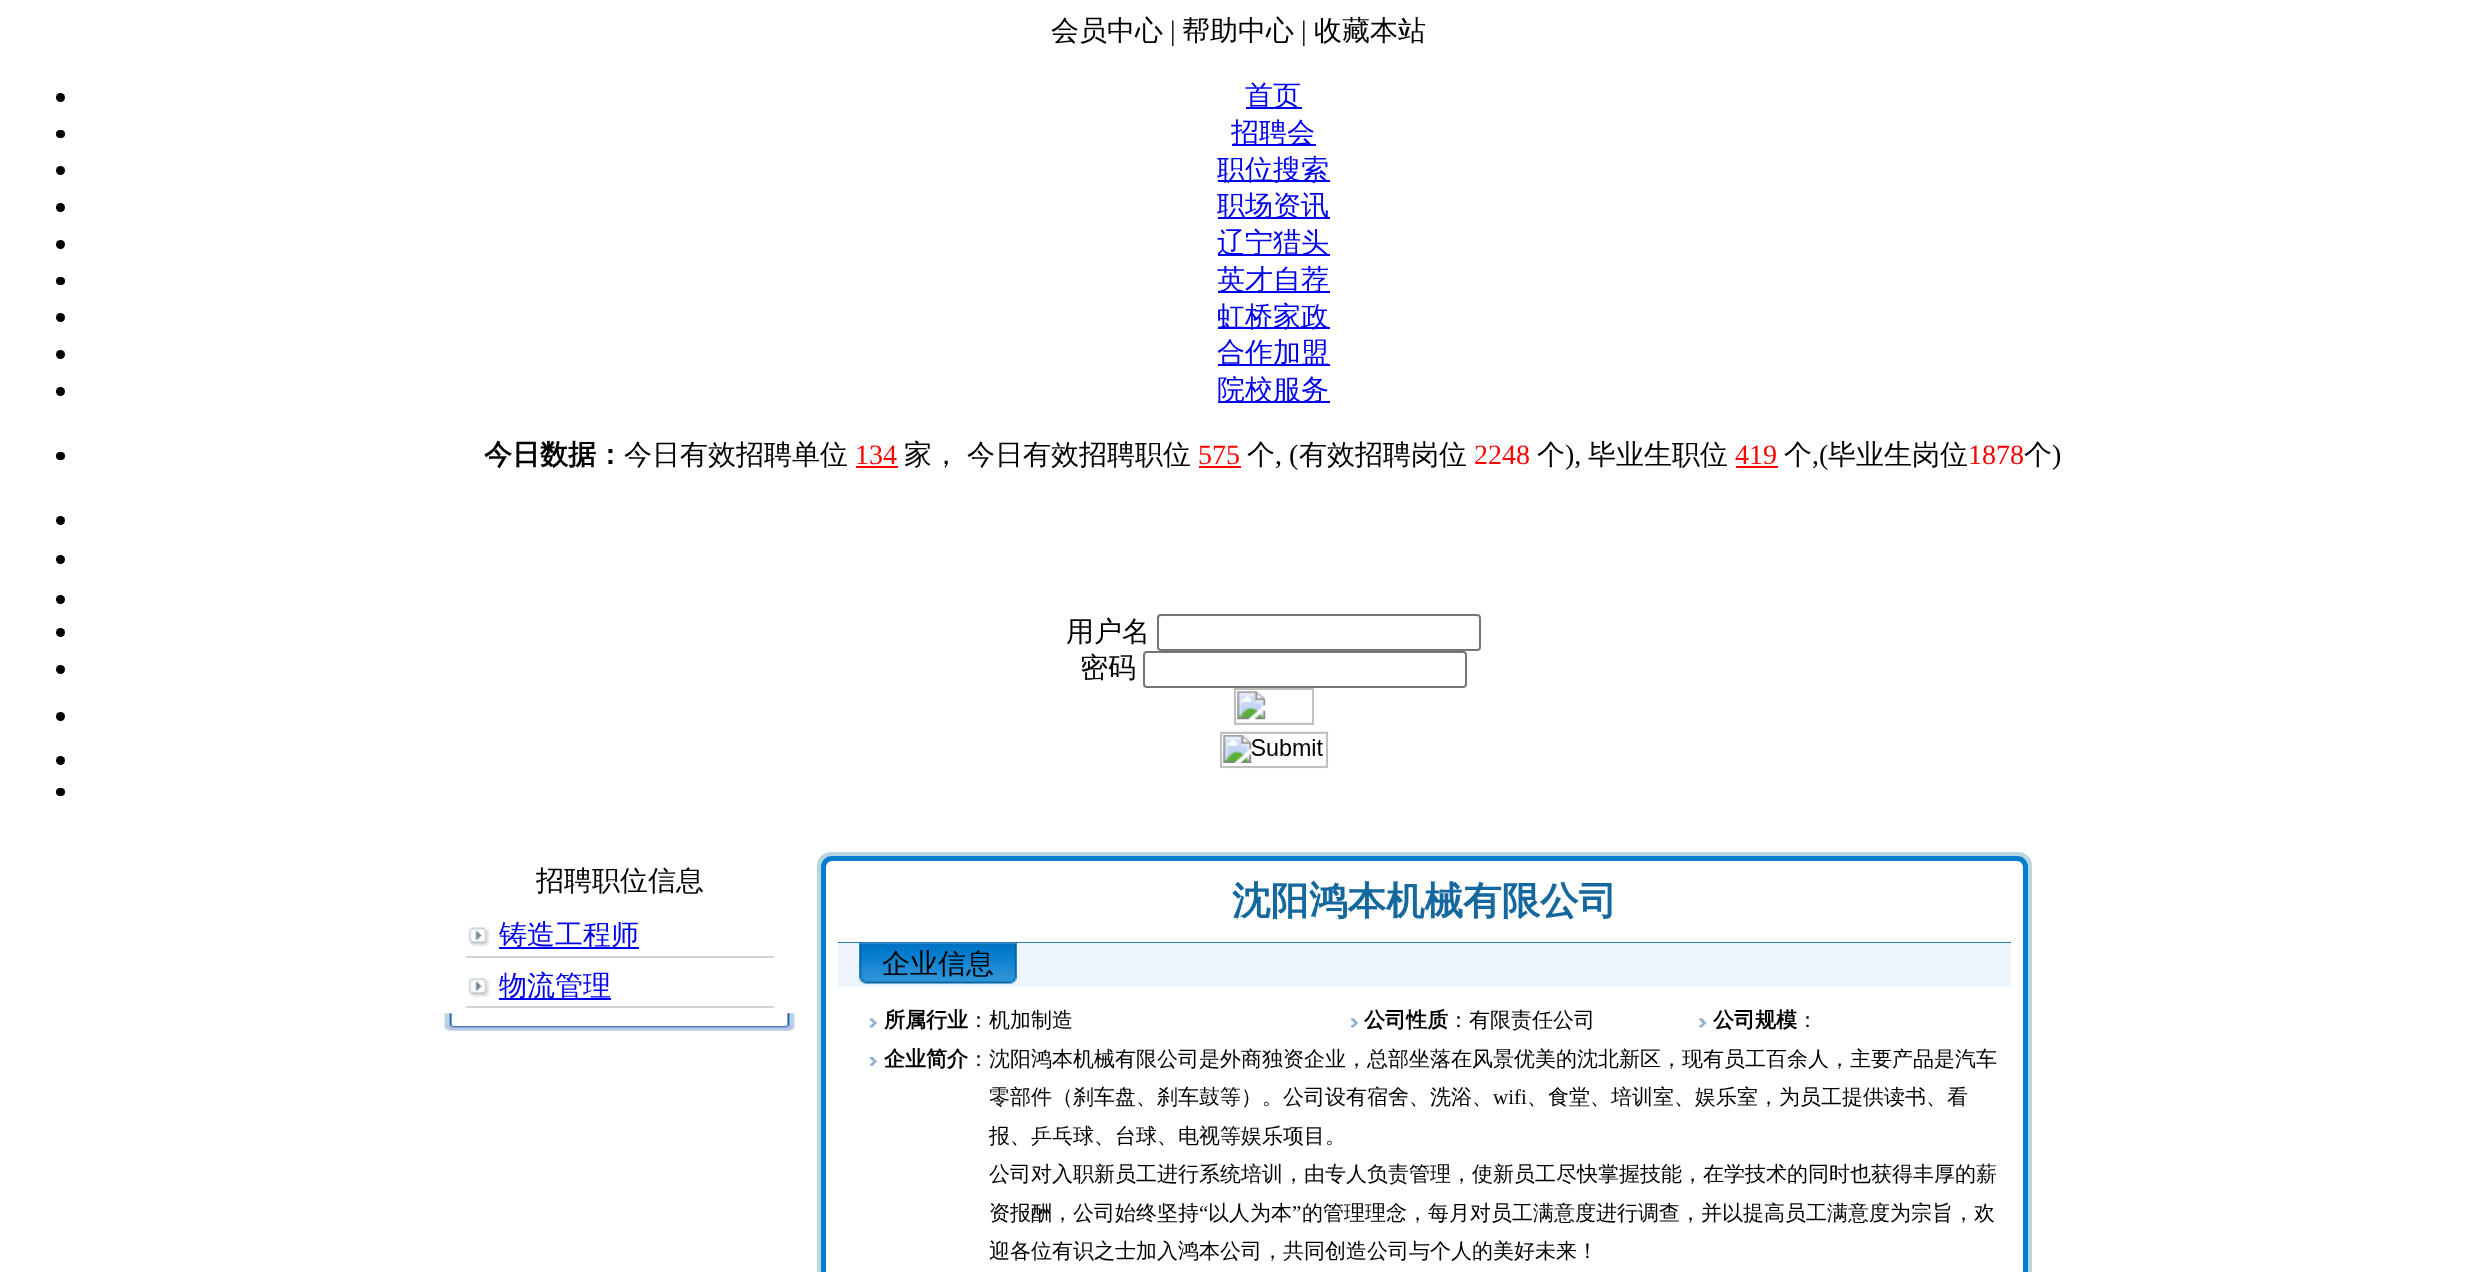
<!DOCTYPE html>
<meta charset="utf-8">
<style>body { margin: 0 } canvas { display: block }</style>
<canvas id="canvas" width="2475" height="1272"></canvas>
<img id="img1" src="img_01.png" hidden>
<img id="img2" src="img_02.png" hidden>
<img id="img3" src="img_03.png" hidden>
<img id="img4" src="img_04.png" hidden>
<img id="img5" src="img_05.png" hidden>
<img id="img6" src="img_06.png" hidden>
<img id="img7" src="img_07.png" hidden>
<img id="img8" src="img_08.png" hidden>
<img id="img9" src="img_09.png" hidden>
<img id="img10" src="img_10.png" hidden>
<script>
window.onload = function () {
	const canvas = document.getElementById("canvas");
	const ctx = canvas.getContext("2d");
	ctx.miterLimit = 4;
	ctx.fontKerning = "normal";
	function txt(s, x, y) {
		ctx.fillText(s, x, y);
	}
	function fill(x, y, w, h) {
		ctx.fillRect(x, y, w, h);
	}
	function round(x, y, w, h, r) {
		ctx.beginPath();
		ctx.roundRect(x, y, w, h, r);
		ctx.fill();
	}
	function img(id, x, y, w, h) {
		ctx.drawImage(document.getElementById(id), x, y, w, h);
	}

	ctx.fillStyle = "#FFFFFF";
	fill(0, 0, 2475, 1272);
	ctx.fillStyle = "#000000";
	ctx.beginPath();
	ctx.arc(60.5, 97.5, 4.5, 0, Math.PI * 2);
	ctx.fill();
	ctx.fillStyle = "#0000EE";
	fill(1246, 107, 56, 2);
	ctx.fillStyle = "#000000";
	round(56, 130, 9, 8, 4);
	ctx.fillStyle = "#0000EE";
	fill(1232, 144, 84, 2);
	ctx.fillStyle = "#000000";
	ctx.beginPath();
	ctx.arc(60.5, 170.5, 4.5, 0, Math.PI * 2);
	ctx.fill();
	ctx.fillStyle = "#0000EE";
	fill(1218, 180, 112, 2);
	ctx.fillStyle = "#000000";
	ctx.beginPath();
	ctx.arc(60.5, 207.5, 4.5, 0, Math.PI * 2);
	ctx.fill();
	ctx.fillStyle = "#0000EE";
	fill(1218, 217, 112, 2);
	ctx.fillStyle = "#000000";
	ctx.beginPath();
	ctx.arc(60.5, 244.5, 4.5, 0, Math.PI * 2);
	ctx.fill();
	ctx.fillStyle = "#0000EE";
	fill(1218, 254, 112, 2);
	ctx.fillStyle = "#000000";
	round(56, 277, 9, 8, 4);
	ctx.fillStyle = "#0000EE";
	fill(1218, 291, 112, 2);
	ctx.fillStyle = "#000000";
	ctx.beginPath();
	ctx.arc(60.5, 317.5, 4.5, 0, Math.PI * 2);
	ctx.fill();
	ctx.fillStyle = "#0000EE";
	fill(1218, 327, 112, 2);
	ctx.fillStyle = "#000000";
	ctx.beginPath();
	ctx.arc(60.5, 354.5, 4.5, 0, Math.PI * 2);
	ctx.fill();
	ctx.fillStyle = "#0000EE";
	fill(1218, 364, 112, 2);
	ctx.fillStyle = "#000000";
	ctx.beginPath();
	ctx.arc(60.5, 391.5, 4.5, 0, Math.PI * 2);
	ctx.fill();
	ctx.fillStyle = "#0000EE";
	fill(1218, 401, 112, 2);
	ctx.fillStyle = "#000000";
	round(56, 452, 9, 8, 4);
	ctx.fillStyle = "#FF0000";
	fill(856, 466, 42, 2);
	fill(1199, 466, 42, 2);
	fill(1736, 466, 42, 2);
	ctx.fillStyle = "#000000";
	ctx.beginPath();
	ctx.arc(60.5, 520.5, 4.5, 0, Math.PI * 2);
	ctx.fill();
	ctx.beginPath();
	ctx.arc(60.5, 559.5, 4.5, 0, Math.PI * 2);
	ctx.fill();
	ctx.beginPath();
	ctx.arc(60.5, 599.5, 4.5, 0, Math.PI * 2);
	ctx.fill();
	ctx.beginPath();
	ctx.arc(60.5, 632.5, 4.5, 0, Math.PI * 2);
	ctx.fill();
	ctx.beginPath();
	ctx.roundRect(1158, 615, 322, 35, 3);
	ctx.strokeStyle = "#767676";
	ctx.lineWidth = 2;
	ctx.stroke();
	ctx.beginPath();
	ctx.arc(60.5, 669.5, 4.5, 0, Math.PI * 2);
	ctx.fill();
	ctx.beginPath();
	ctx.roundRect(1144, 652, 322, 35, 3);
	ctx.stroke();
	ctx.beginPath();
	ctx.arc(60.5, 716.5, 4.5, 0, Math.PI * 2);
	ctx.fill();
	img("img1", 1233, 687, 82, 37);
	ctx.strokeStyle = "#C0C0C0";
	ctx.strokeRect(1235, 689, 78, 35);
	ctx.beginPath();
	ctx.arc(60.5, 760.5, 4.5, 0, Math.PI * 2);
	ctx.fill();
	img("img2", 1219, 731, 110, 38);
	ctx.strokeRect(1221, 733, 106, 34);
	round(56, 788, 9, 8, 4);
	img("img3", 468, 927, 22, 20);
	ctx.fillStyle = "#0000EE";
	fill(499, 947, 140, 2);
	ctx.fillStyle = "#D3D3D3";
	fill(466, 956, 308, 2);
	img("img4", 468, 978, 22, 20);
	ctx.fillStyle = "#0000EE";
	fill(499, 998, 112, 2);
	ctx.fillStyle = "#D3D3D3";
	fill(466, 1006, 308, 2);
	img("img5", 444, 1013, 351, 18);
	ctx.fillStyle = "#B8D5E3";
	ctx.beginPath();
	ctx.roundRect(819, 854, 1211, 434, 12);
	ctx.fill();
	ctx.strokeStyle = "#B8D5E3";
	ctx.lineWidth = 4;
	ctx.stroke();
	ctx.fillStyle = "#FFFFFF";
	ctx.beginPath();
	ctx.roundRect(823.5, 858.5, 1202, 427, 8.5);
	ctx.fill();
	ctx.strokeStyle = "#067CCD";
	ctx.lineWidth = 5;
	ctx.stroke();
	ctx.fillStyle = "#2B77BC";
	fill(838, 942, 1173, 2);
	ctx.fillStyle = "#ECF5FB";
	fill(838, 943, 21, 44);
	img("img6", 859, 943, 158, 44);
	fill(1017, 943, 994, 44);
	img("img7", 869, 1018, 9, 10);
	img("img8", 1351, 1018, 8, 10);
	img("img9", 1699, 1018, 8, 10);
	img("img10", 869, 1057, 9, 9);
	ctx.font = "500 28px WenQuanYi Zen Hei";
	ctx.fillStyle = "#000000";
	txt("会员中心", 1051, 40);
	ctx.font = "28px Liberation Serif";
	txt("|", 1170, 40);
	ctx.font = "500 28px WenQuanYi Zen Hei";
	txt("帮助中心", 1182, 40);
	ctx.font = "28px Liberation Serif";
	txt("|", 1301, 40);
	ctx.font = "500 28px WenQuanYi Zen Hei";
	txt("收藏本站", 1314, 40);
	ctx.fillStyle = "#0000EE";
	txt("首页", 1245, 105);
	txt("招聘会", 1231, 142);
	txt("职位搜索", 1217, 179);
	txt("职场资讯", 1217, 215);
	txt("辽宁猎头", 1217, 252);
	txt("英才自荐", 1217, 289);
	txt("虹桥家政", 1217, 326);
	txt("合作加盟", 1217, 362);
	txt("院校服务", 1217, 399);
	ctx.font = "bold 28px WenQuanYi Zen Hei";
	ctx.fillStyle = "#000000";
	txt("今日数据：", 484, 464);
	ctx.font = "500 28px WenQuanYi Zen Hei";
	txt("今日有效招聘单位", 624, 464);
	ctx.font = "28px Liberation Serif";
	ctx.fillStyle = "#FF0000";
	txt("134", 855, 464);
	ctx.font = "500 28px WenQuanYi Zen Hei";
	ctx.fillStyle = "#000000";
	txt("家，", 904, 464);
	txt("今日有效招聘职位", 967, 464);
	ctx.font = "28px Liberation Serif";
	ctx.fillStyle = "#FF0000";
	txt("575", 1198, 464);
	ctx.font = "500 28px WenQuanYi Zen Hei";
	ctx.fillStyle = "#000000";
	txt("个", 1247, 464);
	ctx.font = "28px Liberation Serif";
	txt(", (", 1275, 464);
	ctx.font = "500 28px WenQuanYi Zen Hei";
	txt("有效招聘岗位", 1299, 464);
	ctx.font = "28px Liberation Serif";
	ctx.fillStyle = "#FF0000";
	txt("2248", 1474, 464);
	ctx.font = "500 28px WenQuanYi Zen Hei";
	ctx.fillStyle = "#000000";
	txt("个", 1537, 464);
	ctx.font = "28px Liberation Serif";
	txt("),", 1565, 464);
	ctx.font = "500 28px WenQuanYi Zen Hei";
	txt("毕业生职位", 1588, 464);
	ctx.font = "28px Liberation Serif";
	ctx.fillStyle = "#FF0000";
	txt("419", 1735, 464);
	ctx.font = "500 28px WenQuanYi Zen Hei";
	ctx.fillStyle = "#000000";
	txt("个", 1784, 464);
	ctx.font = "28px Liberation Serif";
	txt(",(", 1812, 464);
	ctx.font = "500 28px WenQuanYi Zen Hei";
	txt("毕业生岗位", 1828, 464);
	ctx.font = "28px Liberation Serif";
	ctx.fillStyle = "#FF0000";
	txt("1878", 1968, 464);
	ctx.font = "500 28px WenQuanYi Zen Hei";
	ctx.fillStyle = "#000000";
	txt("个", 2024, 464);
	ctx.font = "28px Liberation Serif";
	txt(")", 2052, 464);
	ctx.font = "500 28px WenQuanYi Zen Hei";
	txt("用户名", 1066, 641);
	txt("密码", 1080, 677);
	txt("招聘职位信息", 536, 890);
	ctx.fillStyle = "#0000EE";
	txt("铸造工程师", 499, 944);
	txt("物流管理", 499, 995);
	ctx.font = "bold 38.5px WenQuanYi Zen Hei";
	ctx.fillStyle = "#14689D";
	txt("沈阳鸿本机械有限公司", 1232, 914);
	ctx.font = "500 28px WenQuanYi Zen Hei";
	ctx.fillStyle = "#000000";
	txt("企业信息", 882, 973);
	ctx.font = "bold 21px WenQuanYi Zen Hei";
	txt("所属行业", 884, 1027);
	ctx.font = "500 21px WenQuanYi Zen Hei";
	txt("：机加制造", 968, 1027);
	ctx.font = "bold 21px WenQuanYi Zen Hei";
	txt("公司性质", 1364, 1027);
	ctx.font = "500 21px WenQuanYi Zen Hei";
	txt("：有限责任公司", 1448, 1027);
	ctx.font = "bold 21px WenQuanYi Zen Hei";
	txt("公司规模", 1713, 1027);
	ctx.font = "500 21px WenQuanYi Zen Hei";
	txt("：", 1797, 1027);
	ctx.font = "bold 21px WenQuanYi Zen Hei";
	txt("企业简介", 884, 1066);
	ctx.font = "500 21px WenQuanYi Zen Hei";
	txt("：沈阳鸿本机械有限公司是外商独资企业，总部坐落在风景优美的沈北新区，现有员工百余人，主要产品是汽车", 968, 1066);
	txt("零部件（刹车盘、刹车鼓等）。公司设有宿舍、洗浴、", 989, 1104);
	ctx.font = "21px Liberation Serif";
	txt("wifi", 1493, 1104);
	ctx.font = "500 21px WenQuanYi Zen Hei";
	txt("、食堂、培训室、娱乐室，为员工提供读书、看", 1527, 1104);
	txt("报、乒乓球、台球、电视等娱乐项目。", 989, 1143);
	txt("公司对入职新员工进行系统培训，由专人负责管理，使新员工尽快掌握技能，在学技术的同时也获得丰厚的薪", 989, 1181);
	txt("资报酬，公司始终坚持", 989, 1220);
	ctx.font = "21px Liberation Serif";
	txt("“", 1199, 1220);
	ctx.font = "500 21px WenQuanYi Zen Hei";
	txt("以人为本", 1208, 1220);
	ctx.font = "21px Liberation Serif";
	txt("”", 1292, 1220);
	ctx.font = "500 21px WenQuanYi Zen Hei";
	txt("的管理理念，每月对员工满意度进行调查，并以提高员工满意度为宗旨，欢", 1302, 1220);
	txt("迎各位有识之士加入鸿本公司，共同创造公司与个人的美好未来！", 989, 1258);
};
</script>
